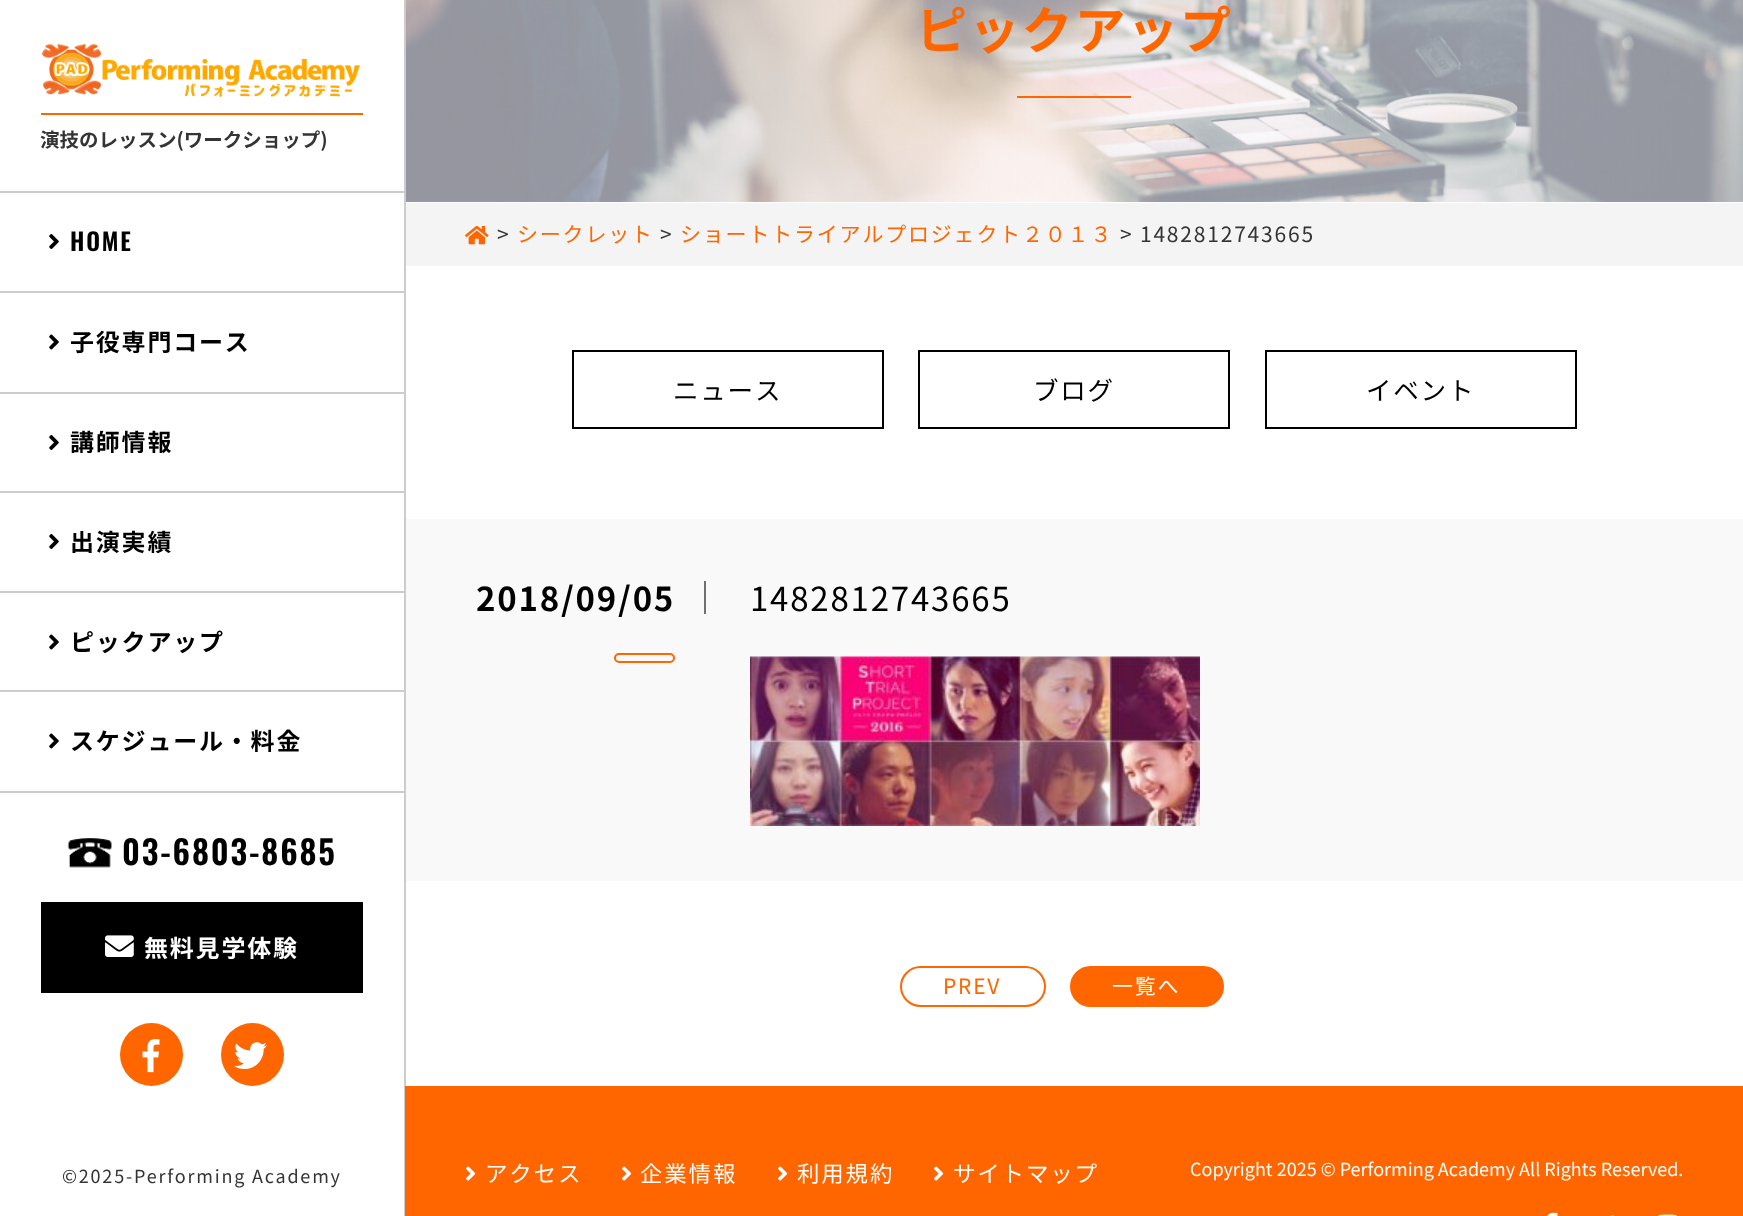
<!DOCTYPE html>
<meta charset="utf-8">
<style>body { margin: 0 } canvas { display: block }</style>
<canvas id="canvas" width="1743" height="1216"></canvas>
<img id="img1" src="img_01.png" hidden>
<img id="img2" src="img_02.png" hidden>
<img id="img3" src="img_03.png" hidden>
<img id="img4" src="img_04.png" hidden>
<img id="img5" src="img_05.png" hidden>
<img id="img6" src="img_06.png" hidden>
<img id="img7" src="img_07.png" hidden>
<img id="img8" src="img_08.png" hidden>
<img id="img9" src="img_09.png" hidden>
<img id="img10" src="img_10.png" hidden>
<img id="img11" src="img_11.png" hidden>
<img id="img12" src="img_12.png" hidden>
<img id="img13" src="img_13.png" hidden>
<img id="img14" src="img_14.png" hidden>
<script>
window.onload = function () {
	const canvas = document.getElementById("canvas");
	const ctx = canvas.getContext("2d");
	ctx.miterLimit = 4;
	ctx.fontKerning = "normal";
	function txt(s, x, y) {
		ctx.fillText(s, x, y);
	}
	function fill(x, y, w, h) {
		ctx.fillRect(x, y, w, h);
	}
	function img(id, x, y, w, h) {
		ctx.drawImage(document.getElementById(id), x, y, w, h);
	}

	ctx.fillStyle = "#FFFFFF";
	fill(0, 0, 1743, 1216);
	ctx.fillStyle = "#CCCCCC";
	fill(404, 0, 2, 1216);
	ctx.fillStyle = "#FF6600";
	fill(41, 113, 322, 2);
	img("img1", 42, 43, 318, 55);
	ctx.fillStyle = "#CCCCCC";
	fill(0, 191, 404, 2);
	fill(0, 291, 404, 2);
	img("img2", 49, 234, 10, 15);
	fill(0, 392, 404, 2);
	img("img3", 49, 334, 10, 16);
	fill(0, 491, 404, 2);
	img("img2", 49, 435, 10, 15);
	fill(0, 591, 404, 2);
	img("img2", 49, 534, 10, 15);
	fill(0, 690, 404, 2);
	img("img3", 49, 634, 10, 16);
	fill(0, 791, 404, 2);
	img("img3", 49, 733, 10, 16);
	img("img4", 67, 838, 45, 30);
	ctx.fillStyle = "#000000";
	fill(41, 902, 322, 91);
	img("img5", 105, 935, 29, 22);
	ctx.fillStyle = "#FF6600";
	ctx.beginPath();
	ctx.arc(151.5, 1054.5, 31.5, 0, Math.PI * 2);
	ctx.fill();
	img("img6", 142, 1039, 18, 34);
	ctx.beginPath();
	ctx.arc(252.5, 1054.5, 31.5, 0, Math.PI * 2);
	ctx.fill();
	img("img7", 234, 1042, 33, 27);
	img("img8", 406, 0, 1337, 202);
	fill(1017, 96, 114, 2);
	ctx.fillStyle = "#F4F4F5";
	fill(406, 203, 1337, 63);
	img("img9", 465, 225, 24, 20);
	ctx.strokeStyle = "#000000";
	ctx.lineWidth = 2;
	ctx.strokeRect(573, 351, 310, 77);
	ctx.strokeRect(919, 351, 310, 77);
	ctx.strokeRect(1266, 351, 310, 77);
	ctx.fillStyle = "#F9F9F9";
	fill(406, 519, 1337, 362);
	ctx.fillStyle = "#707070";
	fill(704, 581, 2, 33);
	ctx.beginPath();
	ctx.roundRect(615, 654, 59, 8, 4);
	ctx.strokeStyle = "#FF6600";
	ctx.stroke();
	img("img10", 750, 656, 450, 170);
	ctx.beginPath();
	ctx.roundRect(901, 967, 144, 39, 19.5);
	ctx.stroke();
	ctx.fillStyle = "#FF6600";
	ctx.beginPath();
	ctx.roundRect(1071, 967, 152, 39, 19.5);
	ctx.fill();
	ctx.stroke();
	fill(405, 1086, 1338, 130);
	img("img11", 466, 1166, 10, 15);
	img("img11", 622, 1166, 10, 15);
	img("img11", 778, 1166, 10, 15);
	img("img11", 934, 1166, 10, 15);
	img("img12", 1547, 1212, 11, 4);
	img("img13", 1610, 1215, 5, 1);
	img("img14", 1657, 1214, 21, 2);
	ctx.font = "bold 19.5px Noto Sans JP";
	ctx.fillStyle = "#343434";
	txt("演技のレッスン(ワークショップ)", 40, 147);
	ctx.letterSpacing = "1.8px";
	ctx.font = "600 24px Oswald";
	ctx.fillStyle = "#000000";
	txt("HOME", 70, 251);
	ctx.font = "bold 24px Noto Sans JP";
	txt("子役専門コース", 70, 351);
	txt("講師情報", 70, 451);
	txt("出演実績", 70, 551);
	txt("ピックアップ", 70, 651);
	txt("スケジュール・料金", 70, 750);
	ctx.font = "600 33px Oswald";
	txt("03-6803-8685", 122, 865);
	ctx.font = "bold 24px Noto Sans JP";
	ctx.fillStyle = "#FFFFFF";
	txt("無料見学体験", 144, 957);
	ctx.font = "18px Noto Sans JP";
	ctx.fillStyle = "#343434";
	txt("©2025-Performing Academy", 62, 1183);
	ctx.font = "bold 51px Noto Sans JP";
	ctx.fillStyle = "#FF6600";
	txt("ピックアップ", 916, 49);
	ctx.font = "21px Noto Sans JP";
	ctx.fillStyle = "#343434";
	txt(">", 497, 242);
	ctx.fillStyle = "#FF6600";
	txt("シークレット", 517, 242);
	ctx.fillStyle = "#343434";
	txt(">", 660, 242);
	ctx.fillStyle = "#FF6600";
	txt("ショートトライアルプロジェクト２０１３", 680, 242);
	ctx.fillStyle = "#343434";
	txt("> 1482812743665", 1120, 242);
	ctx.font = "25.5px Noto Sans JP";
	ctx.fillStyle = "#000000";
	txt("ニュース", 673, 400);
	txt("ブログ", 1033, 400);
	txt("イベント", 1366, 400);
	ctx.font = "bold 33px Noto Sans JP";
	txt("2018/09/05", 476, 611);
	ctx.font = "33px Noto Sans JP";
	txt("1482812743665", 750, 611);
	ctx.font = "21px Noto Sans JP";
	ctx.fillStyle = "#FF6600";
	txt("PREV", 943, 994);
	ctx.fillStyle = "#FFFFFF";
	txt("一覧へ", 1112, 994);
	ctx.font = "22.5px Noto Sans JP";
	txt("アクセス", 485, 1182);
	txt("企業情報", 640, 1182);
	txt("利用規約", 797, 1182);
	txt("サイトマップ", 953, 1182);
	ctx.letterSpacing = "0px";
	ctx.font = "18px Noto Sans JP";
	txt("Copyright 2025 © Performing Academy All Rights Reserved.", 1190, 1176);
};
</script>
